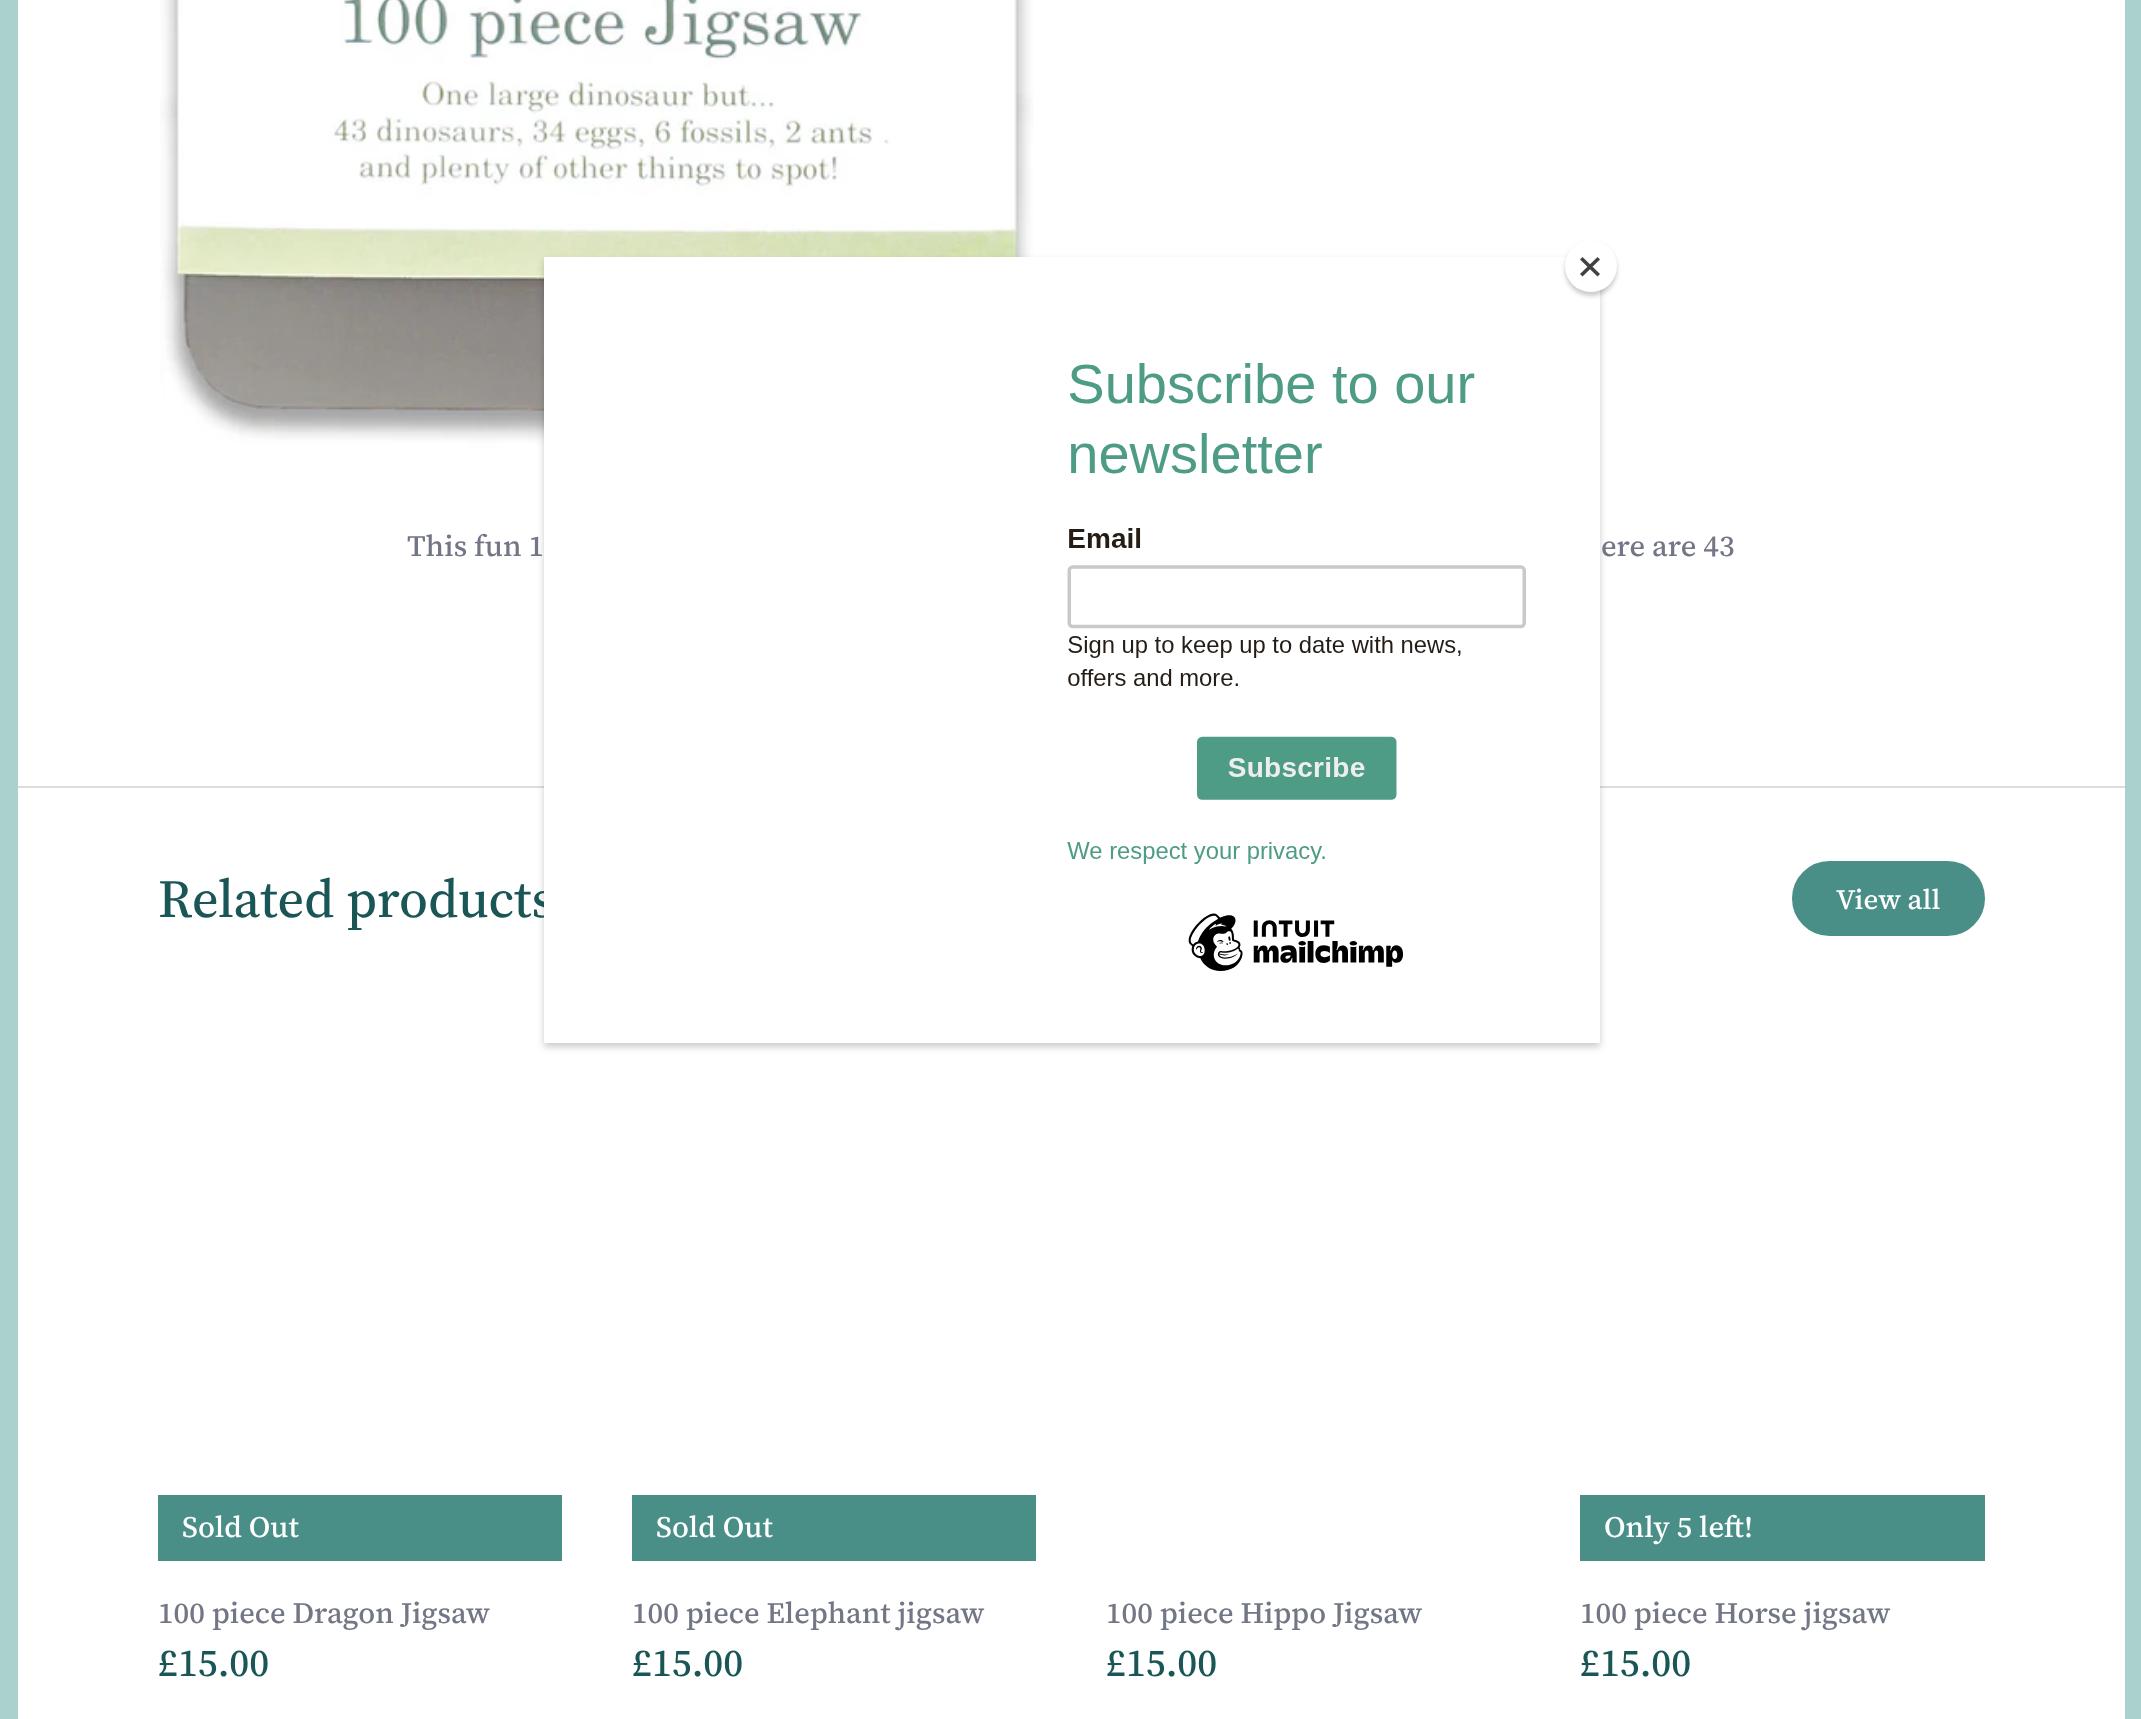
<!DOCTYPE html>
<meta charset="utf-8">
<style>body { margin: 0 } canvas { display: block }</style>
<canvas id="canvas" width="2141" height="1719"></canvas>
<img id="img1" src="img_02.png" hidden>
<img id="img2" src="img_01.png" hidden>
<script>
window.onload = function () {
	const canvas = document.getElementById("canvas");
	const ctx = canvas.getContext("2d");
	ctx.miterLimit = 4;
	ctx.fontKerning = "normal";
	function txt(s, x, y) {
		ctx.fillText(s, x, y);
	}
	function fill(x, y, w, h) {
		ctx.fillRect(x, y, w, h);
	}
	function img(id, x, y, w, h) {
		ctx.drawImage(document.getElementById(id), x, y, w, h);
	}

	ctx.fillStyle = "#FFFFFF";
	fill(0, 0, 2141, 1719);
	ctx.strokeStyle = "#ABD1CC";
	ctx.lineWidth = 18;
	ctx.strokeRect(9, -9, 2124, 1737);
	img("img1", 160, 0, 874, 449);
	fill(2124, 0, 1, 1719);
	ctx.fillStyle = "#DDDDDD";
	fill(18, 786, 2107, 2);
	ctx.fillStyle = "rgba(0, 0, 0, 0.2)";
	ctx.filter = "blur(3.5px)";
	ctx.beginPath();
	ctx.rect(544, 261, 1056, 786);
	ctx.fill();
	ctx.filter = "none";
	ctx.fillStyle = "#4A8F87";
	ctx.beginPath();
	ctx.roundRect(1794, 863, 189, 71, 35.5);
	ctx.fill();
	ctx.strokeStyle = "#4A8F87";
	ctx.lineWidth = 4;
	ctx.stroke();
	fill(158, 1495, 404, 66);
	fill(632, 1495, 404, 66);
	fill(1580, 1495, 405, 66);
	ctx.font = "500 29.75px 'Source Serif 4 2'";
	ctx.fillStyle = "#727685";
	txt("This fun 1", 407, 556);
	txt("ere are 43", 1601, 556);
	ctx.font = "500 53.5px 'Source Serif 4'";
	ctx.fillStyle = "#1B5656";
	txt("Related products", 158, 917);
	img("img2", 544, 257, 1056, 786);
	ctx.fillStyle = "rgba(0, 0, 0, 0.2)";
	ctx.filter = "blur(2px)";
	ctx.beginPath();
	ctx.roundRect(1565, 243, 52, 53, 26);
	ctx.fill();
	ctx.filter = "none";
	ctx.fillStyle = "#FFFFFF";
	ctx.beginPath();
	ctx.arc(1591, 266, 26, 0, Math.PI * 2);
	ctx.fill();
	ctx.fillStyle = "#414141";
	ctx.beginPath();
	ctx.moveTo(1597.5, 257);
	ctx.lineTo(1600, 259.5);
	ctx.lineTo(1582.5, 276.5);
	ctx.lineTo(1580, 274);
	ctx.closePath();
	ctx.fill();
	ctx.beginPath();
	ctx.moveTo(1580, 259.5);
	ctx.lineTo(1582.5, 257);
	ctx.lineTo(1600, 274);
	ctx.lineTo(1597.5, 276.5);
	ctx.closePath();
	ctx.fill();
	ctx.font = "500 28px 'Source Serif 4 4'";
	ctx.fillStyle = "#FFFFFF";
	txt("View all", 1836, 909);
	ctx.font = "500 29.75px 'Source Serif 4 2'";
	txt("Sold Out", 182, 1537);
	ctx.fillStyle = "#727685";
	txt("100 piece Dragon Jigsaw", 158, 1623);
	ctx.font = "500 39px 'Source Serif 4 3'";
	ctx.fillStyle = "#1B5656";
	txt("£15.00", 158, 1676);
	ctx.font = "500 29.75px 'Source Serif 4 2'";
	ctx.fillStyle = "#FFFFFF";
	txt("Sold Out", 656, 1537);
	ctx.fillStyle = "#727685";
	txt("100 piece Elephant jigsaw", 632, 1623);
	ctx.font = "500 39px 'Source Serif 4 3'";
	ctx.fillStyle = "#1B5656";
	txt("£15.00", 632, 1676);
	ctx.font = "500 29.75px 'Source Serif 4 2'";
	ctx.fillStyle = "#727685";
	txt("100 piece Hippo Jigsaw", 1106, 1623);
	ctx.font = "500 39px 'Source Serif 4 3'";
	ctx.fillStyle = "#1B5656";
	txt("£15.00", 1106, 1676);
	ctx.font = "500 29.75px 'Source Serif 4 2'";
	ctx.fillStyle = "#FFFFFF";
	txt("Only 5 left!", 1604, 1537);
	ctx.fillStyle = "#727685";
	txt("100 piece Horse jigsaw", 1580, 1623);
	ctx.font = "500 39px 'Source Serif 4 3'";
	ctx.fillStyle = "#1B5656";
	txt("£15.00", 1580, 1676);
};
</script>
